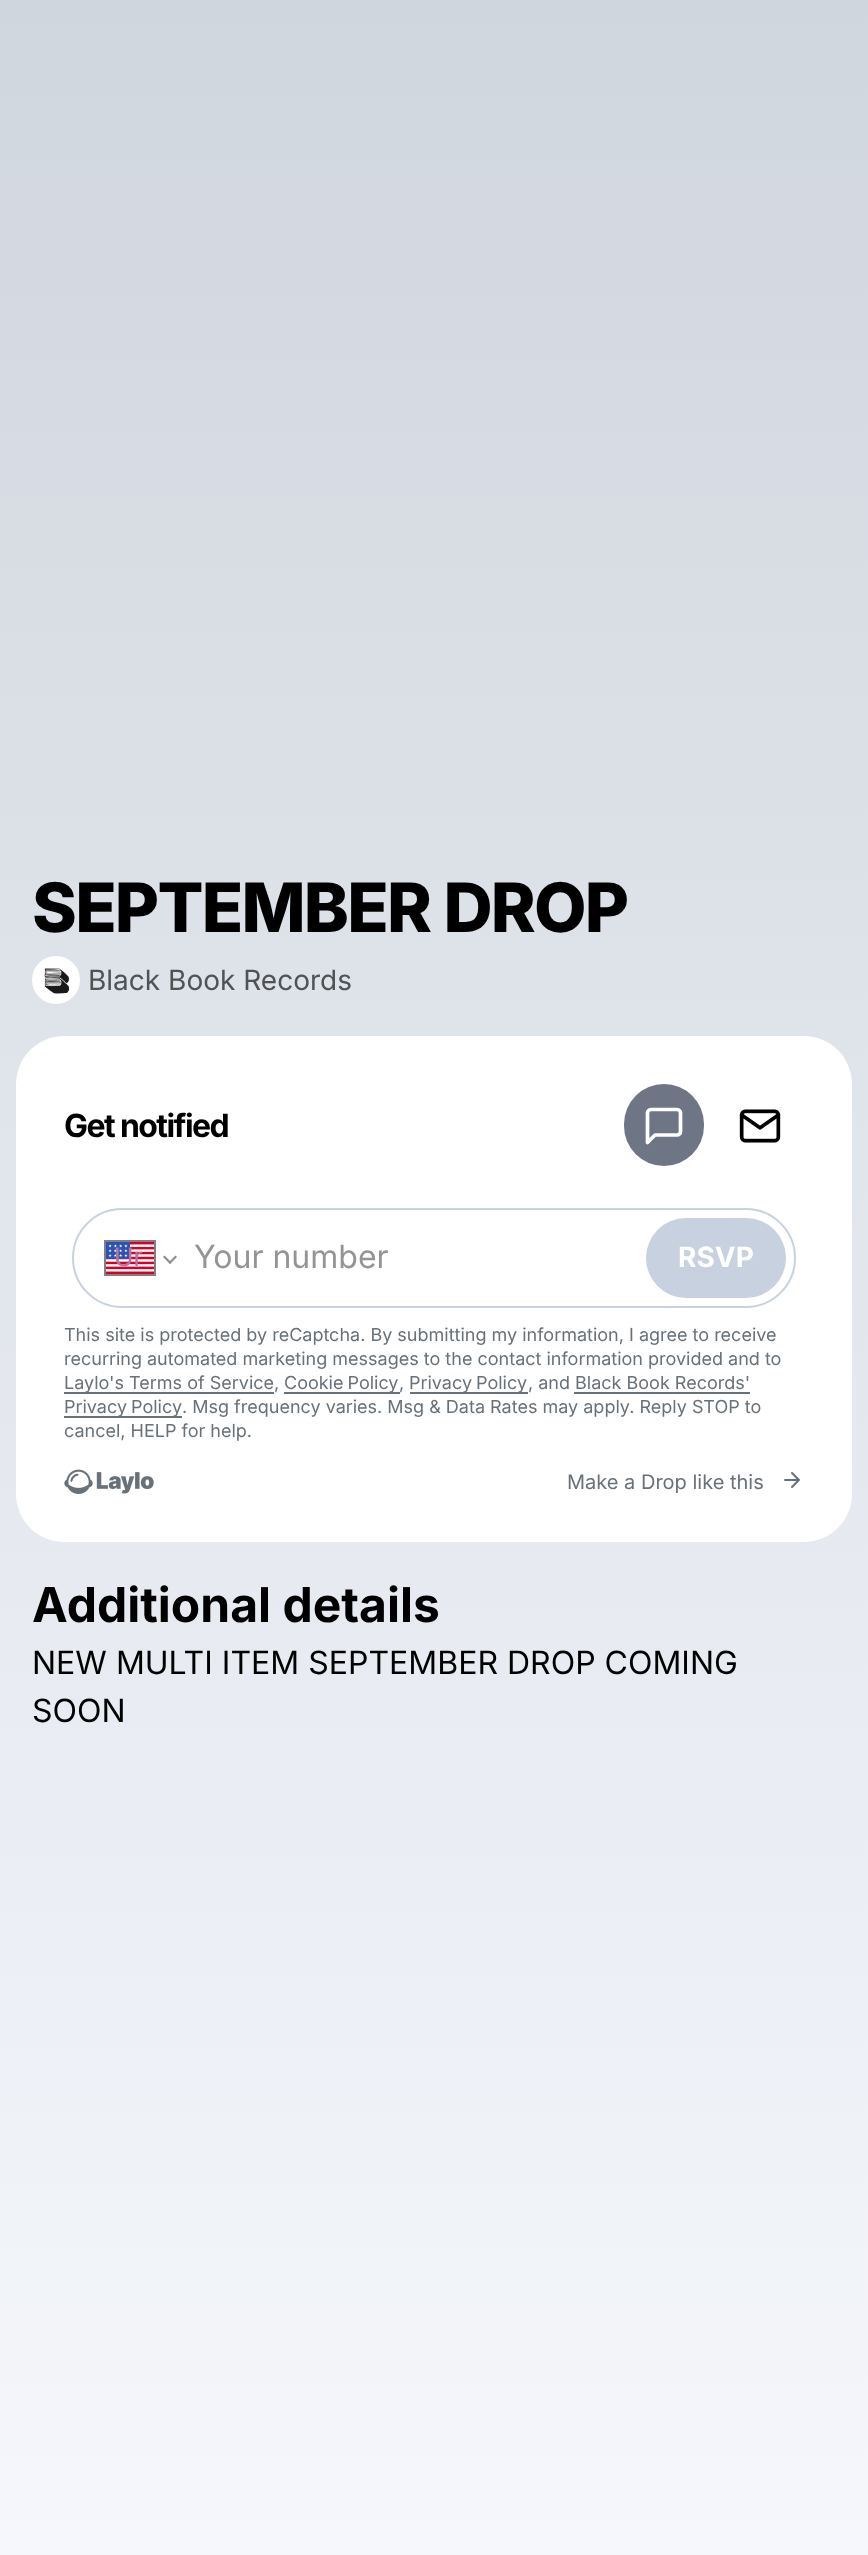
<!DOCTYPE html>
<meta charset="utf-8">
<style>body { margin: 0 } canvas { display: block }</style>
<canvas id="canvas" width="868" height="2555"></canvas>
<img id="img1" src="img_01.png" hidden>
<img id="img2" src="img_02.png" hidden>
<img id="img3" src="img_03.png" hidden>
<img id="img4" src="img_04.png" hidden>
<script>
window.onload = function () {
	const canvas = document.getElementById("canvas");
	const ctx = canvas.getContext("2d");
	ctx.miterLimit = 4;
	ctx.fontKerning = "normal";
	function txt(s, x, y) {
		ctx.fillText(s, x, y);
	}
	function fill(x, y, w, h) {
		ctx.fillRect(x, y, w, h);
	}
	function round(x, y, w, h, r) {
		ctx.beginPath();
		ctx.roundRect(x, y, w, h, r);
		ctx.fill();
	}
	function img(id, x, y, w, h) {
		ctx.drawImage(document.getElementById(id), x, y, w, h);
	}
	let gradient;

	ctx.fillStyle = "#FFFFFF";
	fill(0, 0, 868, 2555);
	gradient = ctx.createLinearGradient(434, 0, 434, 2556);
	gradient.addColorStop(0, "#D0D6DE");
	gradient.addColorStop(1, "#F5F7FC");
	ctx.fillStyle = gradient;
	fill(0, 0, 868, 2555);
	img("img1", 32, 956, 48, 48);
	ctx.fillStyle = "#FFFFFF";
	round(16, 1036, 836, 506, 48);
	ctx.fillStyle = "#6E7584";
	round(624, 1084, 80, 82, 40);
	ctx.beginPath();
	ctx.moveTo(680.5, 1131.5);
	ctx.bezierCurveTo(680.5, 1133.5, 679, 1135, 677, 1135);
	ctx.lineTo(655, 1135);
	ctx.lineTo(647.5, 1142.5);
	ctx.lineTo(647.5, 1113);
	ctx.bezierCurveTo(647.5, 1111, 649, 1109.5, 651, 1109.5);
	ctx.lineTo(677, 1109.5);
	ctx.bezierCurveTo(679, 1109.5, 680.5, 1111, 680.5, 1113);
	ctx.closePath();
	ctx.strokeStyle = "#FFFFFF";
	ctx.lineWidth = 3.7;
	ctx.lineCap = "round";
	ctx.lineJoin = "round";
	ctx.stroke();
	img("img2", 739, 1109, 42, 34);
	ctx.beginPath();
	ctx.roundRect(73, 1209, 722, 98, 49);
	ctx.strokeStyle = "#C8D1DF";
	ctx.lineWidth = 2;
	ctx.lineJoin = "miter";
	ctx.stroke();
	ctx.strokeStyle = "#808080";
	ctx.strokeRect(105, 1241, 50, 34);
	img("img3", 106, 1242, 48, 32);
	ctx.fillStyle = "#8C8C8C";
	ctx.beginPath();
	ctx.moveTo(175.5, 1255.5);
	ctx.lineTo(177, 1257);
	ctx.lineTo(170, 1264);
	ctx.lineTo(168.5, 1262.5);
	ctx.closePath();
	ctx.fill();
	ctx.beginPath();
	ctx.moveTo(164.5, 1255.5);
	ctx.lineTo(171.5, 1262.5);
	ctx.lineTo(170, 1264);
	ctx.lineTo(163, 1257);
	ctx.closePath();
	ctx.fill();
	ctx.fillStyle = "#C8D1DF";
	round(646, 1218, 140, 80, 40);
	ctx.fillStyle = "#687178";
	fill(64, 1392, 210, 2);
	fill(284, 1392, 116, 2);
	fill(410, 1392, 118, 2);
	fill(574, 1392, 176, 2);
	fill(64, 1416, 118, 2);
	img("img4", 64, 1469, 90, 25);
	ctx.beginPath();
	ctx.moveTo(785, 1480);
	ctx.lineTo(799, 1480);
	ctx.moveTo(792, 1473);
	ctx.lineTo(799, 1480);
	ctx.lineTo(792, 1487);
	ctx.strokeStyle = "#687178";
	ctx.lineJoin = "round";
	ctx.stroke();
	ctx.letterSpacing = "-1.75px";
	ctx.font = "800 68px Inter";
	ctx.fillStyle = "#000000";
	txt("SEPTEMBER DROP", 32, 932);
	ctx.letterSpacing = "0px";
	ctx.font = "28px Inter";
	ctx.fillStyle = "#505254";
	txt("Black Book Records", 88, 990);
	ctx.letterSpacing = "-1.6px";
	ctx.font = "bold 32px Inter";
	ctx.fillStyle = "#000000";
	txt("Get notified", 64, 1137);
	ctx.save();
	ctx.beginPath();
	ctx.rect(114, 1240, 28, 34);
	ctx.clip();
	ctx.letterSpacing = "0px";
	ctx.font = "27px Liberation Sans";
	ctx.fillStyle = "#B6759E";
	txt("Un", 114, 1266);
	ctx.restore();
	ctx.letterSpacing = "0px";
	ctx.font = "32px Inter";
	ctx.fillStyle = "#949494";
	txt("Your number", 194, 1268);
	ctx.font = "bold 28px Inter";
	ctx.fillStyle = "#FFFFFF";
	txt("RSVP", 678, 1267);
	ctx.font = "18px Inter";
	ctx.fillStyle = "#687178";
	txt("This site is protected by reCaptcha. By submitting my information, I agree to receive", 64, 1341);
	txt("recurring automated marketing messages to the contact information provided and to", 64, 1365);
	txt("Laylo's Terms of Service,", 64, 1389);
	ctx.wordSpacing = "-1px";
	txt("Cookie Policy", 284, 1389);
	ctx.wordSpacing = "0px";
	txt(",", 399, 1389);
	ctx.wordSpacing = "-1px";
	txt("Privacy Policy", 409, 1389);
	ctx.wordSpacing = "0px";
	txt(", and Black Book Records'", 528, 1389);
	ctx.wordSpacing = "-1px";
	txt("Privacy Policy", 64, 1413);
	ctx.wordSpacing = "0px";
	txt(". Msg frequency varies. Msg & Data Rates may apply. Reply STOP to", 182, 1413);
	txt("cancel, HELP for help.", 64, 1437);
	ctx.font = "20px Inter";
	txt("Make a Drop like this", 567, 1489);
	ctx.font = "bold 48px Inter";
	ctx.fillStyle = "#000000";
	txt("Additional details", 32, 1622);
	ctx.font = "32px Inter";
	txt("NEW MULTI ITEM SEPTEMBER DROP COMING", 32, 1674);
	txt("SOON", 32, 1722);
};
</script>
